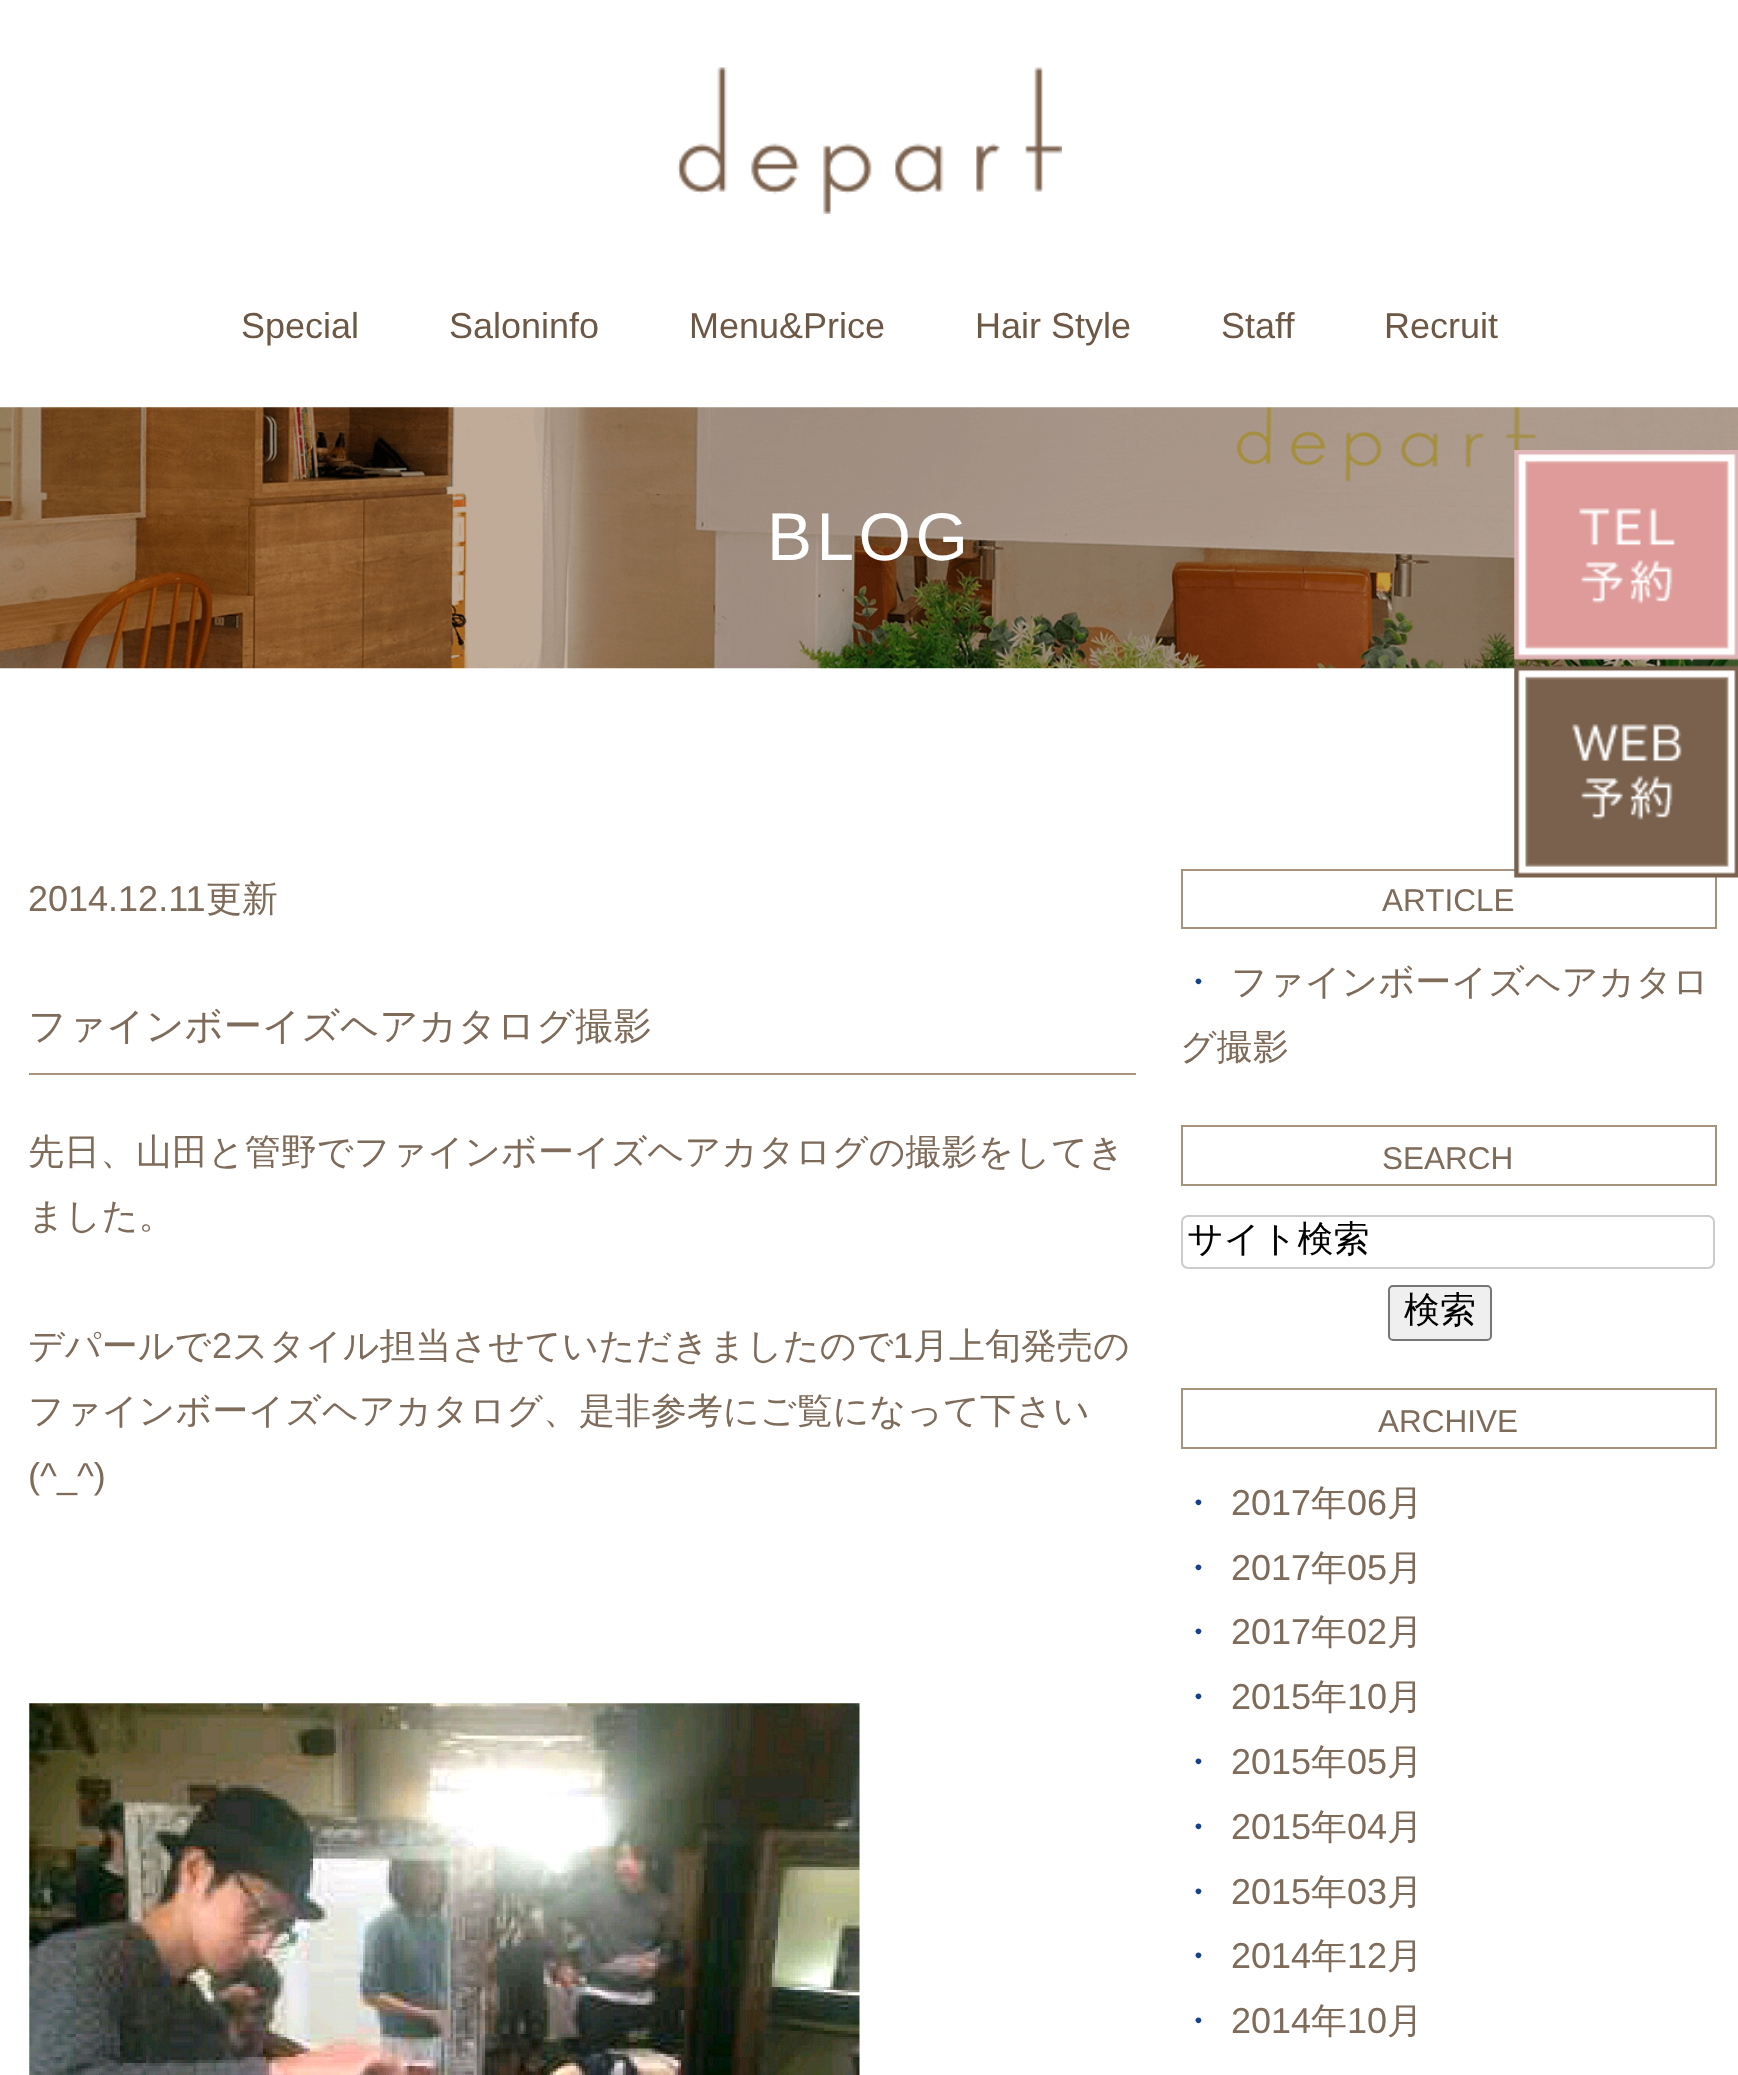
<!DOCTYPE html>
<meta charset="utf-8">
<style>body { margin: 0 } canvas { display: block }</style>
<canvas id="canvas" width="1738" height="2075"></canvas>
<img id="img1" src="img_01.png" hidden>
<img id="img2" src="img_02.png" hidden>
<img id="img3" src="img_03.png" hidden>
<img id="img4" src="img_04.png" hidden>
<script>
window.onload = function () {
	const canvas = document.getElementById("canvas");
	const ctx = canvas.getContext("2d");
	ctx.miterLimit = 4;
	ctx.fontKerning = "normal";
	function txt(s, x, y) {
		ctx.fillText(s, x, y);
	}
	function fill(x, y, w, h) {
		ctx.fillRect(x, y, w, h);
	}
	function img(id, x, y, w, h) {
		ctx.drawImage(document.getElementById(id), x, y, w, h);
	}

	ctx.fillStyle = "#FFFFFF";
	fill(0, 0, 1738, 2075);
	img("img1", 677, 67, 385, 147);
	img("img2", 0, 407, 1738, 262);
	ctx.strokeStyle = "#A6937C";
	ctx.lineWidth = 2;
	ctx.strokeRect(1182, 870, 534, 58);
	img("img3", 1514, 450, 224, 428);
	ctx.fillStyle = "#A6937C";
	fill(29, 1073, 1107, 2);
	img("img4", 29, 1703, 831, 372);
	ctx.strokeRect(1182, 1126, 534, 59);
	ctx.beginPath();
	ctx.roundRect(1182, 1216, 532, 52, 6);
	ctx.strokeStyle = "#CCCCCC";
	ctx.stroke();
	ctx.fillStyle = "#EFEFEF";
	ctx.beginPath();
	ctx.roundRect(1389, 1286, 102, 54, 4);
	ctx.fill();
	ctx.strokeStyle = "#767676";
	ctx.stroke();
	ctx.strokeStyle = "#A6937C";
	ctx.strokeRect(1182, 1389, 534, 59);
	ctx.font = "36px Liberation Sans";
	ctx.fillStyle = "#6D5745";
	txt("Special", 241, 338);
	txt("Saloninfo", 449, 338);
	txt("Menu&Price", 689, 338);
	txt("Hair Style", 975, 338);
	txt("Staff", 1221, 338);
	txt("Recruit", 1384, 338);
	ctx.letterSpacing = "4.5px";
	ctx.font = "67.5px Liberation Sans";
	ctx.fillStyle = "#FFFFFF";
	txt("BLOG", 767, 560);
	ctx.letterSpacing = "0px";
	ctx.font = "36px Liberation Sans";
	ctx.fillStyle = "#7E6B5A";
	txt("2014.12.11", 28, 911);
	ctx.font = "500 36px WenQuanYi Zen Hei";
	txt("更新", 206, 911);
	ctx.font = "500 38.25px WenQuanYi Zen Hei";
	txt("ファインボーイズヘアカタログ撮影", 28, 1039);
	ctx.font = "500 36px WenQuanYi Zen Hei";
	txt("先日、山田と管野でファインボーイズヘアカタログの撮影をしてき", 28, 1164);
	txt("ました。", 28, 1228);
	txt("デパールで", 28, 1358);
	ctx.font = "36px Liberation Sans";
	txt("2", 212, 1358);
	ctx.font = "500 36px WenQuanYi Zen Hei";
	txt("スタイル担当させていただきましたので", 232, 1358);
	ctx.font = "36px Liberation Sans";
	txt("1", 893, 1358);
	ctx.font = "500 36px WenQuanYi Zen Hei";
	txt("月上旬発売の", 913, 1358);
	txt("ファインボーイズヘアカタログ、是非参考にご覧になって下さい", 28, 1423);
	ctx.font = "36px Liberation Sans";
	txt("(^_^)", 28, 1488);
	ctx.font = "31.5px Liberation Sans";
	txt("ARTICLE", 1382, 911);
	ctx.font = "500 36px WenQuanYi Zen Hei";
	ctx.fillStyle = "#14408C";
	txt("・", 1180, 994);
	ctx.fillStyle = "#7E6B5A";
	txt("ファインボーイズヘアカタロ", 1231, 994);
	txt("グ撮影", 1180, 1059);
	ctx.font = "31.5px Liberation Sans";
	txt("SEARCH", 1382, 1169);
	ctx.font = "500 36px WenQuanYi Zen Hei";
	ctx.fillStyle = "#000000";
	txt("サイト検索", 1187, 1251);
	txt("検索", 1404, 1322);
	ctx.font = "31.5px Liberation Sans";
	ctx.fillStyle = "#7E6B5A";
	txt("ARCHIVE", 1378, 1432);
	ctx.font = "500 36px WenQuanYi Zen Hei";
	ctx.fillStyle = "#14408C";
	txt("・", 1180, 1515);
	ctx.font = "36px Liberation Sans";
	ctx.fillStyle = "#7E6B5A";
	txt("2017", 1231, 1515);
	ctx.font = "500 36px WenQuanYi Zen Hei";
	txt("年", 1311, 1515);
	ctx.font = "36px Liberation Sans";
	txt("06", 1347, 1515);
	ctx.font = "500 36px WenQuanYi Zen Hei";
	txt("月", 1387, 1515);
	ctx.fillStyle = "#14408C";
	txt("・", 1180, 1580);
	ctx.font = "36px Liberation Sans";
	ctx.fillStyle = "#7E6B5A";
	txt("2017", 1231, 1580);
	ctx.font = "500 36px WenQuanYi Zen Hei";
	txt("年", 1311, 1580);
	ctx.font = "36px Liberation Sans";
	txt("05", 1347, 1580);
	ctx.font = "500 36px WenQuanYi Zen Hei";
	txt("月", 1387, 1580);
	ctx.fillStyle = "#14408C";
	txt("・", 1180, 1644);
	ctx.font = "36px Liberation Sans";
	ctx.fillStyle = "#7E6B5A";
	txt("2017", 1231, 1644);
	ctx.font = "500 36px WenQuanYi Zen Hei";
	txt("年", 1311, 1644);
	ctx.font = "36px Liberation Sans";
	txt("02", 1347, 1644);
	ctx.font = "500 36px WenQuanYi Zen Hei";
	txt("月", 1387, 1644);
	ctx.fillStyle = "#14408C";
	txt("・", 1180, 1709);
	ctx.font = "36px Liberation Sans";
	ctx.fillStyle = "#7E6B5A";
	txt("2015", 1231, 1709);
	ctx.font = "500 36px WenQuanYi Zen Hei";
	txt("年", 1311, 1709);
	ctx.font = "36px Liberation Sans";
	txt("10", 1347, 1709);
	ctx.font = "500 36px WenQuanYi Zen Hei";
	txt("月", 1387, 1709);
	ctx.fillStyle = "#14408C";
	txt("・", 1180, 1774);
	ctx.font = "36px Liberation Sans";
	ctx.fillStyle = "#7E6B5A";
	txt("2015", 1231, 1774);
	ctx.font = "500 36px WenQuanYi Zen Hei";
	txt("年", 1311, 1774);
	ctx.font = "36px Liberation Sans";
	txt("05", 1347, 1774);
	ctx.font = "500 36px WenQuanYi Zen Hei";
	txt("月", 1387, 1774);
	ctx.fillStyle = "#14408C";
	txt("・", 1180, 1839);
	ctx.font = "36px Liberation Sans";
	ctx.fillStyle = "#7E6B5A";
	txt("2015", 1231, 1839);
	ctx.font = "500 36px WenQuanYi Zen Hei";
	txt("年", 1311, 1839);
	ctx.font = "36px Liberation Sans";
	txt("04", 1347, 1839);
	ctx.font = "500 36px WenQuanYi Zen Hei";
	txt("月", 1387, 1839);
	ctx.fillStyle = "#14408C";
	txt("・", 1180, 1904);
	ctx.font = "36px Liberation Sans";
	ctx.fillStyle = "#7E6B5A";
	txt("2015", 1231, 1904);
	ctx.font = "500 36px WenQuanYi Zen Hei";
	txt("年", 1311, 1904);
	ctx.font = "36px Liberation Sans";
	txt("03", 1347, 1904);
	ctx.font = "500 36px WenQuanYi Zen Hei";
	txt("月", 1387, 1904);
	ctx.fillStyle = "#14408C";
	txt("・", 1180, 1968);
	ctx.font = "36px Liberation Sans";
	ctx.fillStyle = "#7E6B5A";
	txt("2014", 1231, 1968);
	ctx.font = "500 36px WenQuanYi Zen Hei";
	txt("年", 1311, 1968);
	ctx.font = "36px Liberation Sans";
	txt("12", 1347, 1968);
	ctx.font = "500 36px WenQuanYi Zen Hei";
	txt("月", 1387, 1968);
	ctx.fillStyle = "#14408C";
	txt("・", 1180, 2033);
	ctx.font = "36px Liberation Sans";
	ctx.fillStyle = "#7E6B5A";
	txt("2014", 1231, 2033);
	ctx.font = "500 36px WenQuanYi Zen Hei";
	txt("年", 1311, 2033);
	ctx.font = "36px Liberation Sans";
	txt("10", 1347, 2033);
	ctx.font = "500 36px WenQuanYi Zen Hei";
	txt("月", 1387, 2033);
};
</script>
